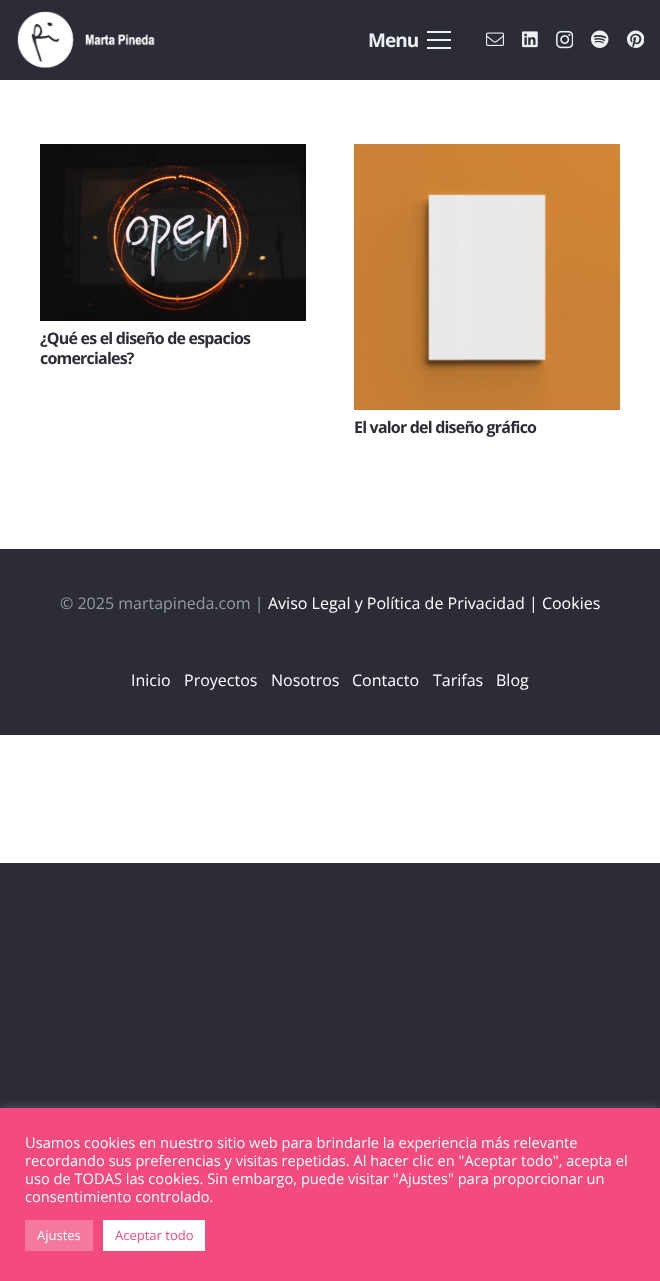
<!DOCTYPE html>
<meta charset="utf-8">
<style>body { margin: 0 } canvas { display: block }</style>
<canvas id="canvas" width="660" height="1281"></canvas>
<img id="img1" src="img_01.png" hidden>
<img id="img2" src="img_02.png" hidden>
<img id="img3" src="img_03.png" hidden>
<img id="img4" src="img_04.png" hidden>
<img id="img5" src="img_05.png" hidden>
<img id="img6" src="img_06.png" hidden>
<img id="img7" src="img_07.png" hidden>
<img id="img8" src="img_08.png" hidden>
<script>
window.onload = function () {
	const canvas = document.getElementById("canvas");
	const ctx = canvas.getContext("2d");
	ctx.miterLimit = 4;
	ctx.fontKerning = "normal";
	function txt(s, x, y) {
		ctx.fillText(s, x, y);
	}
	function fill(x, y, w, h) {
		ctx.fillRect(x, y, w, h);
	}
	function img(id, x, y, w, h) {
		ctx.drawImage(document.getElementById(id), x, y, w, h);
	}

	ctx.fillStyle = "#2B2C36";
	fill(0, 0, 660, 1281);
	ctx.fillStyle = "#FFFFFF";
	fill(0, 80, 660, 469);
	img("img1", 17, 11, 138, 57);
	ctx.fillStyle = "#EDF0F2";
	fill(427, 39, 24, 2);
	fill(427, 31, 24, 2);
	fill(427, 47, 24, 2);
	img("img2", 486, 32, 18, 14);
	img("img3", 522, 31, 16, 17);
	img("img4", 556, 30, 17, 19);
	img("img5", 591, 30, 18, 18);
	img("img6", 627, 30, 17, 18);
	img("img7", 40, 144, 266, 177);
	img("img8", 354, 144, 266, 266);
	ctx.fillStyle = "#FFFFFF";
	fill(0, 735, 660, 128);
	ctx.fillStyle = "rgba(172, 171, 171, 0.3)";
	ctx.filter = "blur(5px)";
	ctx.beginPath();
	ctx.rect(0, 1107, 660, 173);
	ctx.fill();
	ctx.filter = "none";
	ctx.fillStyle = "#F34B7F";
	fill(0, 1108, 660, 173);
	ctx.fillStyle = "#F5789D";
	fill(25, 1220, 68, 31);
	ctx.fillStyle = "#FFFFFF";
	fill(103, 1220, 102, 31);
	ctx.letterSpacing = "-1px";
	ctx.font = "bold 19px Open Sans";
	ctx.fillStyle = "#EDF0F2";
	txt("Menu", 368, 47);
	ctx.letterSpacing = "-0.8px";
	ctx.font = "bold 16px Open Sans";
	ctx.fillStyle = "#2B2C36";
	txt("¿Qué es el diseño de espacios", 40, 344);
	txt("comerciales?", 40, 364);
	txt("El valor del diseño gráfico", 354, 433);
	ctx.letterSpacing = "0px";
	ctx.font = "16px Open Sans";
	ctx.fillStyle = "#9698A3";
	txt("© 2025 martapineda.com |", 60, 609);
	ctx.fillStyle = "#FFFFFF";
	txt("Aviso Legal y Política de Privacidad | Cookies", 268, 609);
	txt("Inicio", 131, 686);
	txt("Proyectos", 184, 686);
	txt("Nosotros", 271, 686);
	txt("Contacto", 352, 686);
	txt("Tarifas", 433, 686);
	txt("Blog", 496, 686);
	ctx.font = "14.65px Open Sans";
	txt("Usamos cookies en nuestro sitio web para brindarle la experiencia más relevante", 25, 1148);
	txt("recordando sus preferencias y visitas repetidas. Al hacer clic en \"Aceptar todo\", acepta el", 25, 1166);
	txt("uso de TODAS las cookies. Sin embargo, puede visitar \"Ajustes\" para proporcionar un", 25, 1184);
	txt("consentimiento controlado.", 25, 1202);
	ctx.font = "13px Open Sans";
	txt("Ajustes", 37, 1240);
	ctx.fillStyle = "#F34B7F";
	txt("Aceptar todo", 115, 1240);
};
</script>
